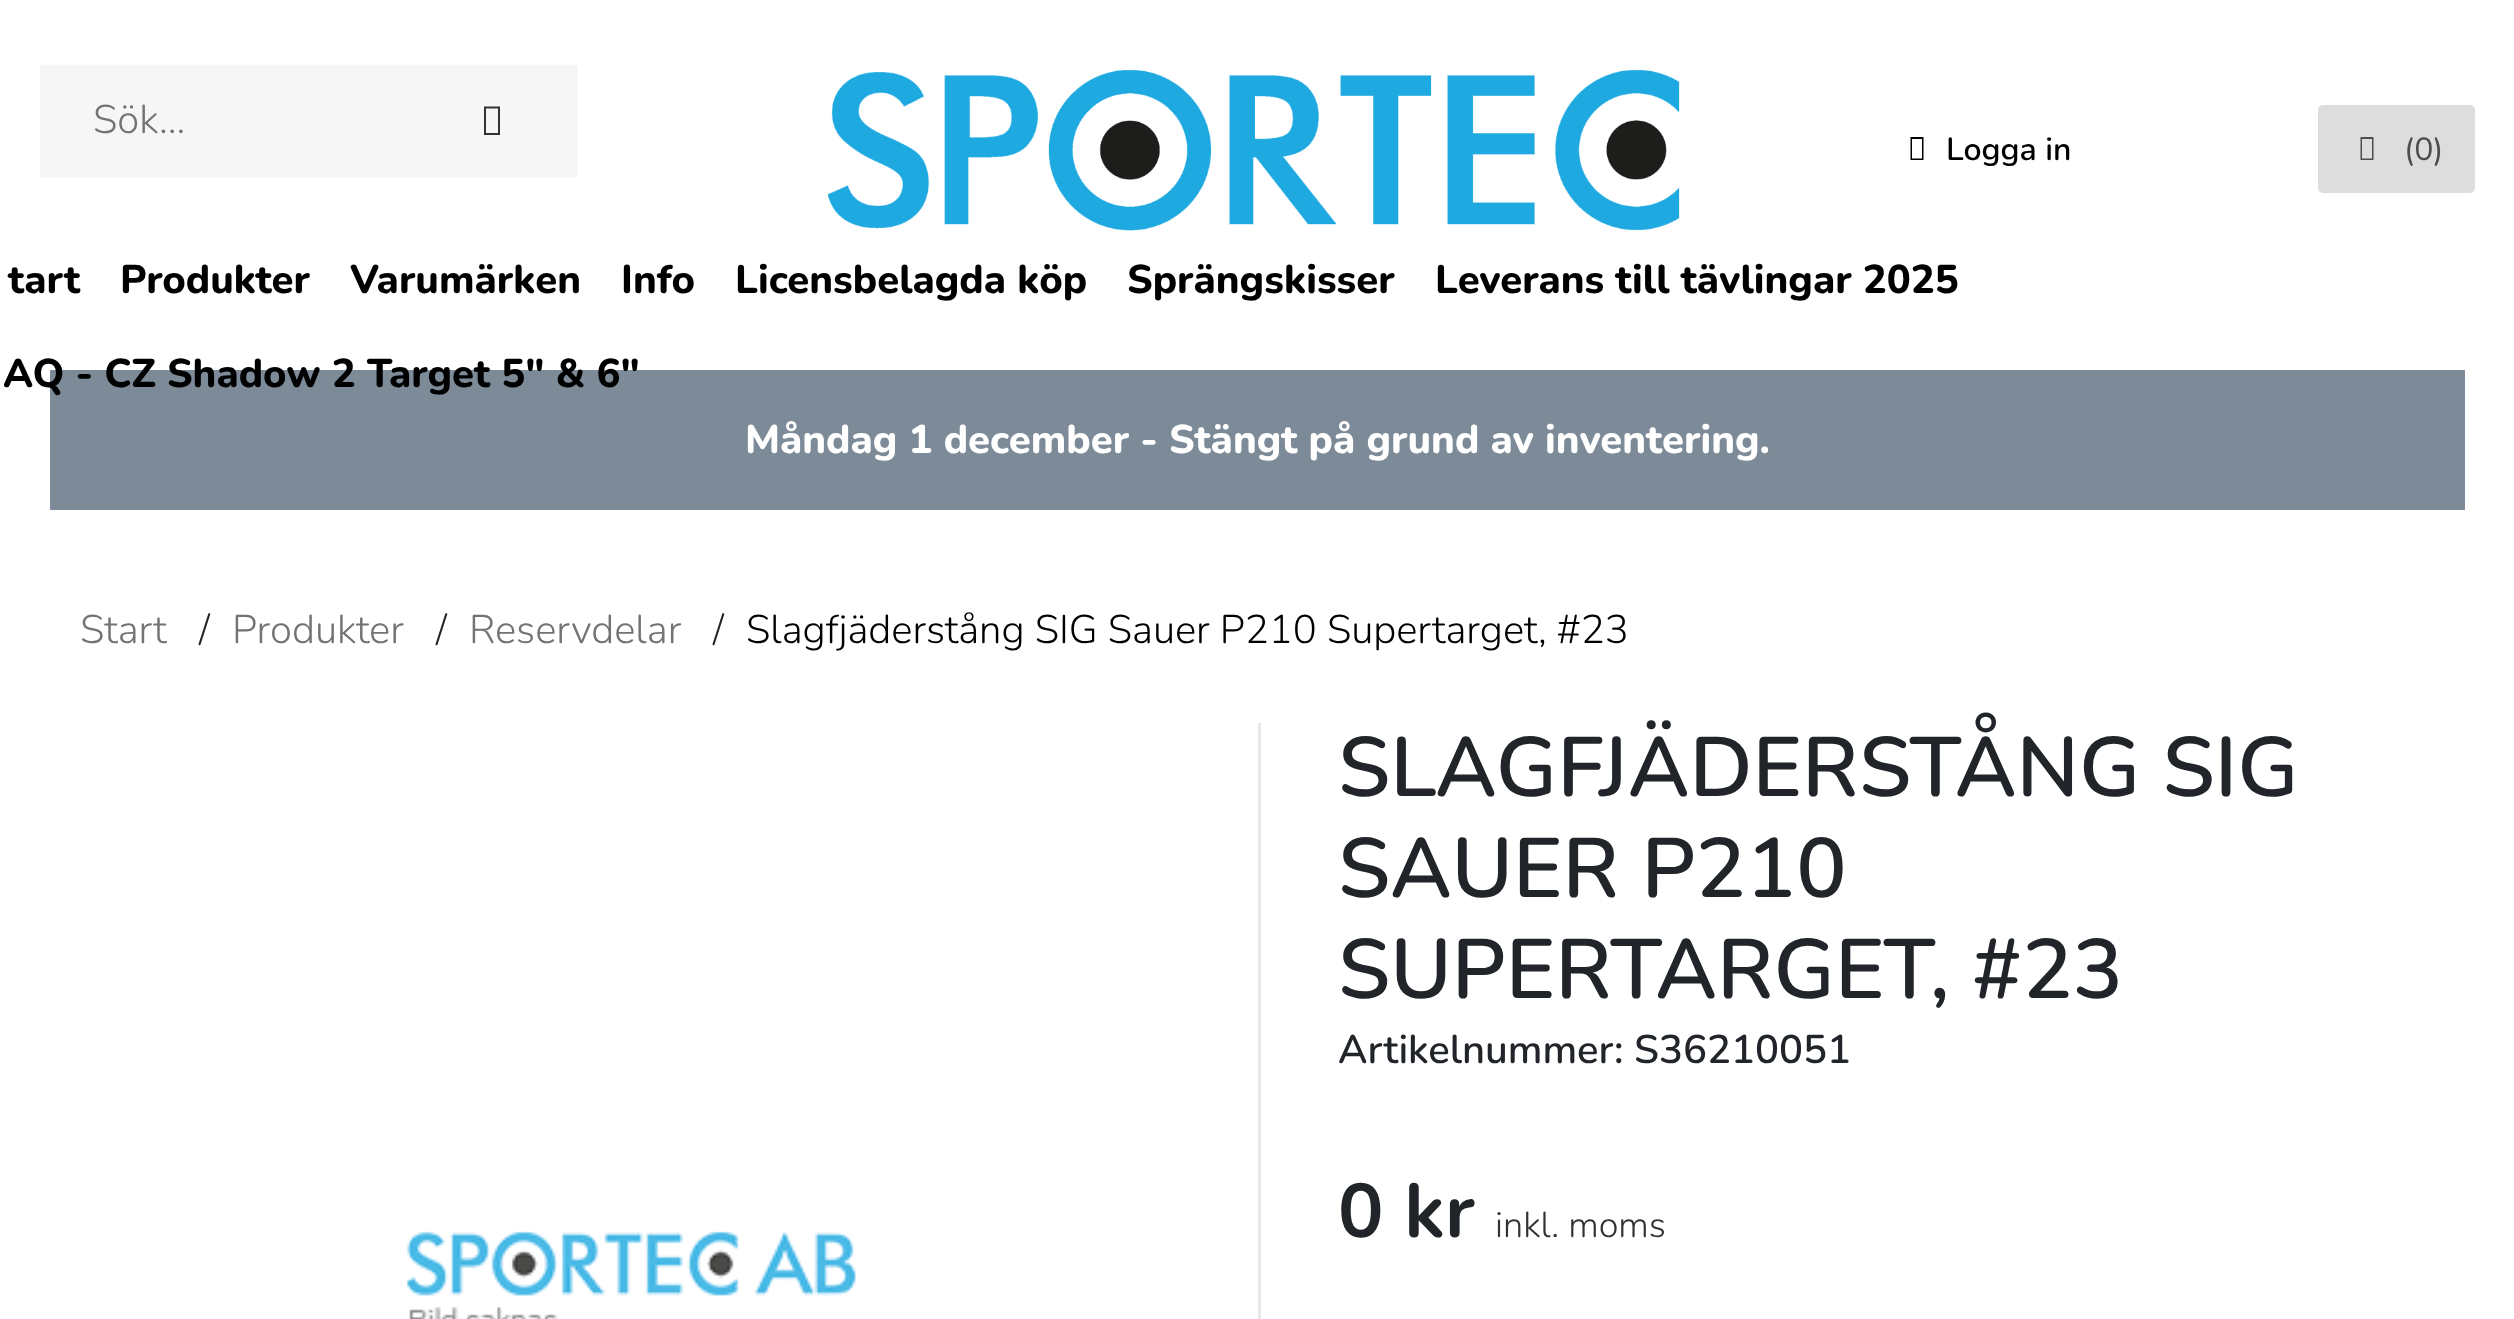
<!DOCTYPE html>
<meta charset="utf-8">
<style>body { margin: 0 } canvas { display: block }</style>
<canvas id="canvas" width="2514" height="1319"></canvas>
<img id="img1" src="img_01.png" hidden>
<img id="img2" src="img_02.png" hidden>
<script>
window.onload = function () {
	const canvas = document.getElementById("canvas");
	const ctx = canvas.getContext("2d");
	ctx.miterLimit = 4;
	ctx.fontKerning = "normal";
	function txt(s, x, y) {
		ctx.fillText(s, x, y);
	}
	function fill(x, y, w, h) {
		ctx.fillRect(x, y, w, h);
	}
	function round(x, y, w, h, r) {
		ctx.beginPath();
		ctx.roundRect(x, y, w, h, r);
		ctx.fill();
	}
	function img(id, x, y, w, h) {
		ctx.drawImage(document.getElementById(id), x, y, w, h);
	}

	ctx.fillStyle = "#FFFFFF";
	fill(0, 0, 2514, 1319);
	ctx.fillStyle = "#F6F6F6";
	round(40, 65, 538, 113, 5);
	ctx.beginPath();
	ctx.moveTo(46, 71);
	ctx.lineTo(571, 71);
	ctx.lineTo(571, 171);
	ctx.lineTo(46, 171);
	ctx.closePath();
	ctx.strokeStyle = "#F6F6F6";
	ctx.lineWidth = 12.5;
	ctx.stroke();
	ctx.fillStyle = "#333333";
	ctx.beginPath();
	ctx.moveTo(484, 135);
	ctx.lineTo(484, 106.5);
	ctx.lineTo(500, 106.5);
	ctx.lineTo(500, 135);
	ctx.closePath();
	ctx.moveTo(486, 133);
	ctx.lineTo(498, 133);
	ctx.lineTo(498, 108.5);
	ctx.lineTo(486, 108.5);
	ctx.closePath();
	ctx.fill();
	img("img1", 828, 70, 852, 161);
	ctx.fillStyle = "#000000";
	ctx.beginPath();
	ctx.moveTo(1910.5, 160);
	ctx.lineTo(1910.5, 137);
	ctx.lineTo(1923.5, 137);
	ctx.lineTo(1923.5, 160);
	ctx.closePath();
	ctx.moveTo(1912, 158.5);
	ctx.lineTo(1922, 158.5);
	ctx.lineTo(1922, 139);
	ctx.lineTo(1912, 139);
	ctx.closePath();
	ctx.fill();
	ctx.fillStyle = "#DDDDDD";
	round(2318, 105, 157, 88, 5);
	ctx.fillStyle = "#4D4D4D";
	ctx.beginPath();
	ctx.moveTo(2360.5, 160);
	ctx.lineTo(2360.5, 137);
	ctx.lineTo(2373.5, 137);
	ctx.lineTo(2373.5, 160);
	ctx.closePath();
	ctx.moveTo(2362, 158.5);
	ctx.lineTo(2372, 158.5);
	ctx.lineTo(2372, 139);
	ctx.lineTo(2362, 139);
	ctx.closePath();
	ctx.fill();
	ctx.fillStyle = "#7D8B98";
	fill(50, 370, 2415, 140);
	img("img2", 406, 1231, 450, 88);
	ctx.fillStyle = "#E5E8EA";
	fill(1258, 723, 3, 596);
	ctx.font = "200 40px Nunito";
	ctx.fillStyle = "#737373";
	txt("Sök...", 93, 133);
	ctx.font = "200 32px 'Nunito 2'";
	ctx.fillStyle = "#000000";
	txt("Logga in", 1946, 160);
	ctx.font = "200 32px 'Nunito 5'";
	ctx.fillStyle = "#4D4D4D";
	txt("(0)", 2404, 160);
	ctx.font = "200 40px 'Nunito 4'";
	ctx.fillStyle = "#000000";
	txt("tart", 8, 293);
	txt("Produkter", 120, 293);
	txt("Varumärken", 350, 293);
	txt("Info", 621, 293);
	txt("Licensbelagda köp", 735, 293);
	txt("Sprängskisser", 1127, 293);
	txt("Leverans till tävlingar 2025", 1435, 293);
	txt("AQ - CZ Shadow 2 Target 5\" & 6\"", 3, 387);
	ctx.fillStyle = "#FFFFFF";
	txt("Måndag 1 december - Stängt på grund av inventering.", 745, 453);
	ctx.font = "200 40px Nunito";
	ctx.fillStyle = "#737373";
	txt("Start", 80, 643);
	ctx.fillStyle = "#212529";
	txt("/", 199, 643);
	ctx.fillStyle = "#737373";
	txt("Produkter", 232, 643);
	ctx.fillStyle = "#212529";
	txt("/", 436, 643);
	ctx.fillStyle = "#737373";
	txt("Reservdelar", 469, 643);
	ctx.fillStyle = "#212529";
	txt("/", 713, 643);
	ctx.fillStyle = "#000000";
	txt("Slagfjäderstång SIG Sauer P210 Supertarget, #23", 746, 643);
	ctx.font = "200 84px 'Nunito 2'";
	ctx.fillStyle = "#212529";
	txt("SLAGFJÄDERSTÅNG SIG", 1338, 796);
	txt("SAUER P210", 1338, 897);
	txt("SUPERTARGET, #23", 1338, 998);
	ctx.font = "200 40px 'Nunito 2'";
	txt("Artikelnummer: S36210051", 1338, 1063);
	ctx.font = "200 76px 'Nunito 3'";
	txt("0 kr", 1338, 1237);
	ctx.font = "200 36px Nunito";
	ctx.fillStyle = "#333333";
	txt("inkl. moms", 1495, 1237);
};
</script>
